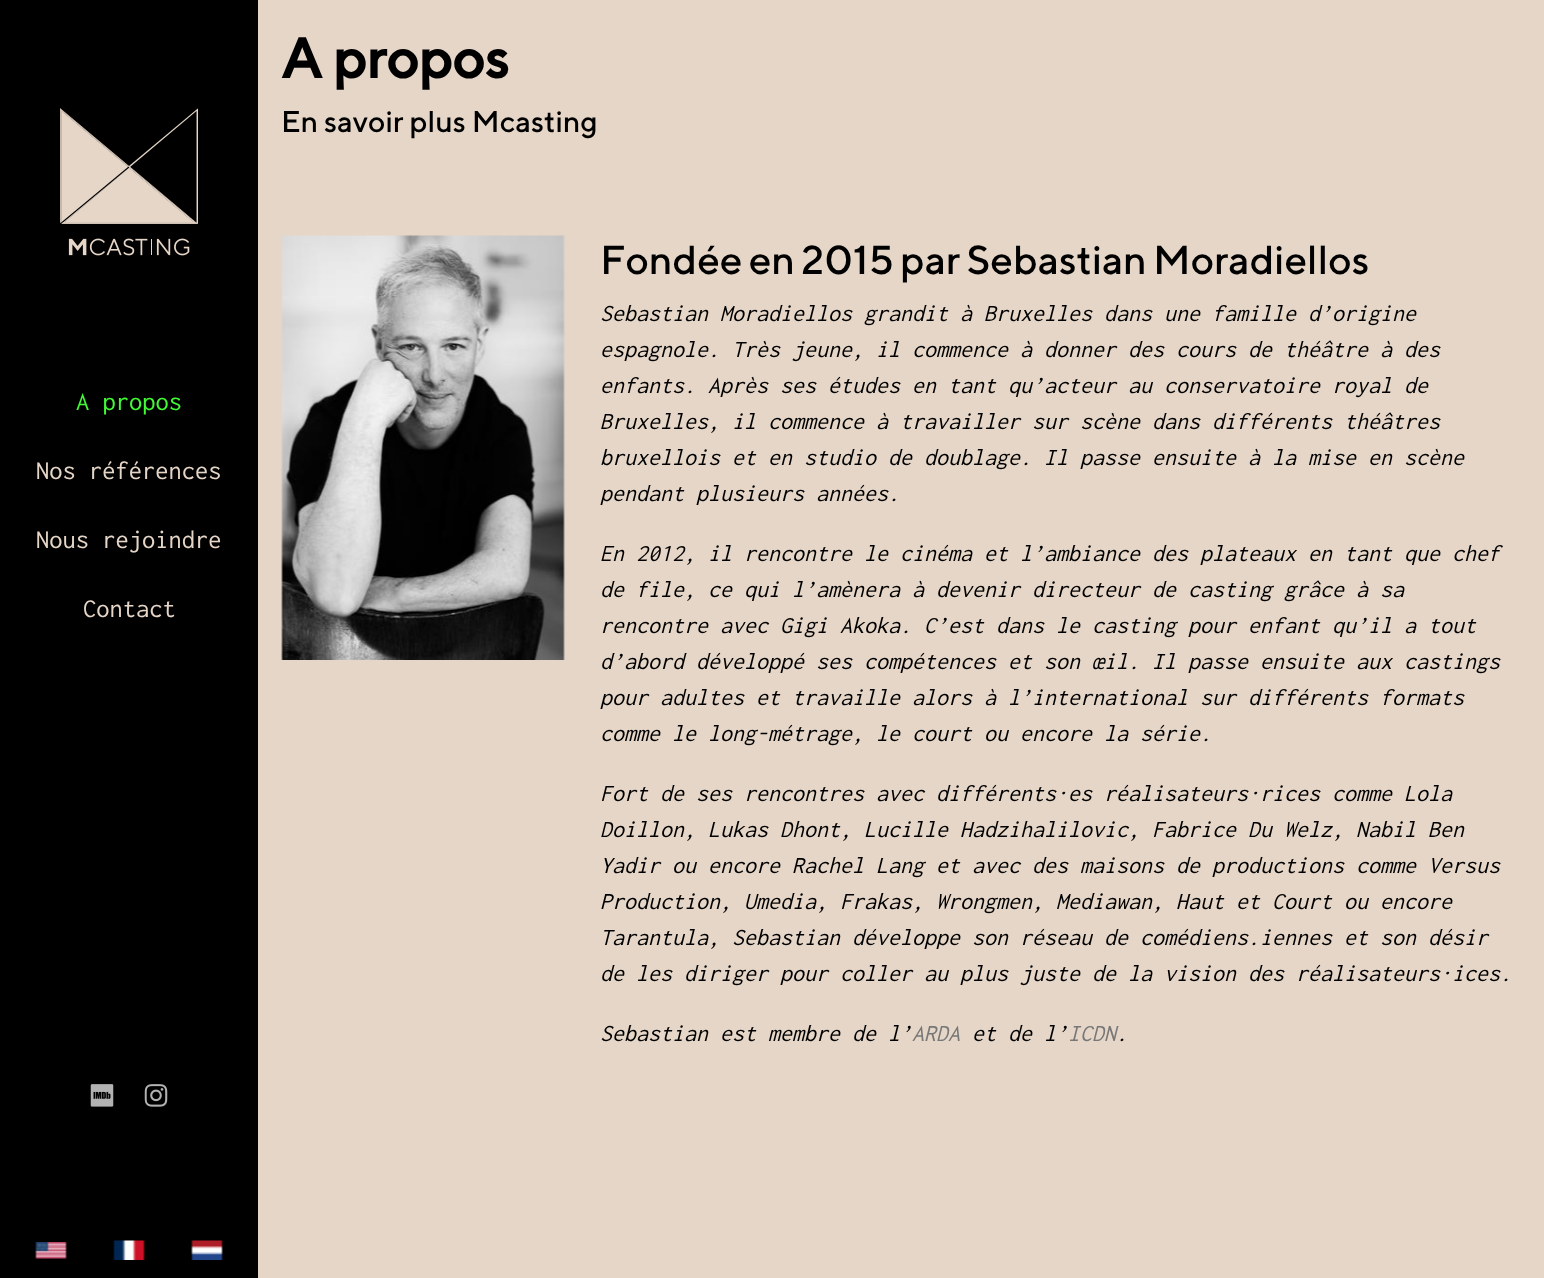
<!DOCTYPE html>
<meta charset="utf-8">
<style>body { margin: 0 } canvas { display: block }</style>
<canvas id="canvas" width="1544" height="1278"></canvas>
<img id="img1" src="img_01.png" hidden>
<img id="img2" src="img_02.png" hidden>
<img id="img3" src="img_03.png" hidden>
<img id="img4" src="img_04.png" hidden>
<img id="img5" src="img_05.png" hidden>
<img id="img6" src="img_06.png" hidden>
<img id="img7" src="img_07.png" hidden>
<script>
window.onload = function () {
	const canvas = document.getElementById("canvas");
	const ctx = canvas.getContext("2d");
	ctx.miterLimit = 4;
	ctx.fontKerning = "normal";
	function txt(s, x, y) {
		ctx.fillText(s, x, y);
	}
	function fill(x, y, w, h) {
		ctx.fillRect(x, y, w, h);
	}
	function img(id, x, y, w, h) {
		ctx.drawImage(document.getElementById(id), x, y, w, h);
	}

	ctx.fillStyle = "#E5D6C7";
	fill(0, 0, 1544, 1278);
	ctx.fillStyle = "#000000";
	fill(0, 0, 258, 1278);
	img("img1", 60, 108, 138, 148);
	img("img2", 90, 1084, 24, 23);
	img("img3", 144, 1084, 24, 23);
	img("img4", 35, 1242, 32, 17);
	img("img5", 113, 1240, 32, 20);
	img("img6", 191, 1240, 32, 20);
	img("img7", 281, 235, 284, 425);
	ctx.font = "26.5px Inconsolata";
	ctx.fillStyle = "#42F935";
	txt("A propos", 76, 410);
	ctx.fillStyle = "#E5D6C7";
	txt("Nos références", 36, 479);
	txt("Nous rejoindre", 36, 548);
	txt("Contact", 83, 617);
	ctx.font = "bold 56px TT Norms";
	ctx.fillStyle = "#000000";
	txt("A propos", 281, 78);
	ctx.font = "500 30px TT Norms";
	txt("En savoir plus Mcasting", 281, 132);
	ctx.wordSpacing = "-1.75px";
	ctx.font = "500 40.5px TT Norms";
	txt("Fondée en 2015 par Sebastian Moradiellos", 600, 274);
	ctx.wordSpacing = "0px";
	ctx.font = "italic 24px Inconsolata";
	txt("Sebastian Moradiellos grandit à Bruxelles dans une famille d’origine", 600, 321);
	txt("espagnole. Très jeune, il commence à donner des cours de théâtre à des", 600, 357);
	txt("enfants. Après ses études en tant qu’acteur au conservatoire royal de", 600, 393);
	txt("Bruxelles, il commence à travailler sur scène dans différents théâtres", 600, 429);
	txt("bruxellois et en studio de doublage. Il passe ensuite à la mise en scène", 600, 465);
	txt("pendant plusieurs années.", 600, 501);
	txt("En 2012, il rencontre le cinéma et l’ambiance des plateaux en tant que chef", 600, 561);
	txt("de file, ce qui l’amènera à devenir directeur de casting grâce à sa", 600, 597);
	txt("rencontre avec Gigi Akoka. C’est dans le casting pour enfant qu’il a tout", 600, 633);
	txt("d’abord développé ses compétences et son œil. Il passe ensuite aux castings", 600, 669);
	txt("pour adultes et travaille alors à l’international sur différents formats", 600, 705);
	txt("comme le long-métrage, le court ou encore la série.", 600, 741);
	txt("Fort de ses rencontres avec différents·es réalisateurs·rices comme Lola", 600, 801);
	txt("Doillon, Lukas Dhont, Lucille Hadzihalilovic, Fabrice Du Welz, Nabil Ben", 600, 837);
	txt("Yadir ou encore Rachel Lang et avec des maisons de productions comme Versus", 600, 873);
	txt("Production, Umedia, Frakas, Wrongmen, Mediawan, Haut et Court ou encore", 600, 909);
	txt("Tarantula, Sebastian développe son réseau de comédiens.iennes et son désir", 600, 945);
	txt("de les diriger pour coller au plus juste de la vision des réalisateurs·ices.", 600, 981);
	txt("Sebastian est membre de l’", 600, 1041);
	ctx.fillStyle = "#777777";
	txt("ARDA", 912, 1041);
	ctx.fillStyle = "#000000";
	txt("et de l’", 972, 1041);
	ctx.fillStyle = "#777777";
	txt("ICDN", 1068, 1041);
	ctx.fillStyle = "#000000";
	txt(".", 1116, 1041);
};
</script>
